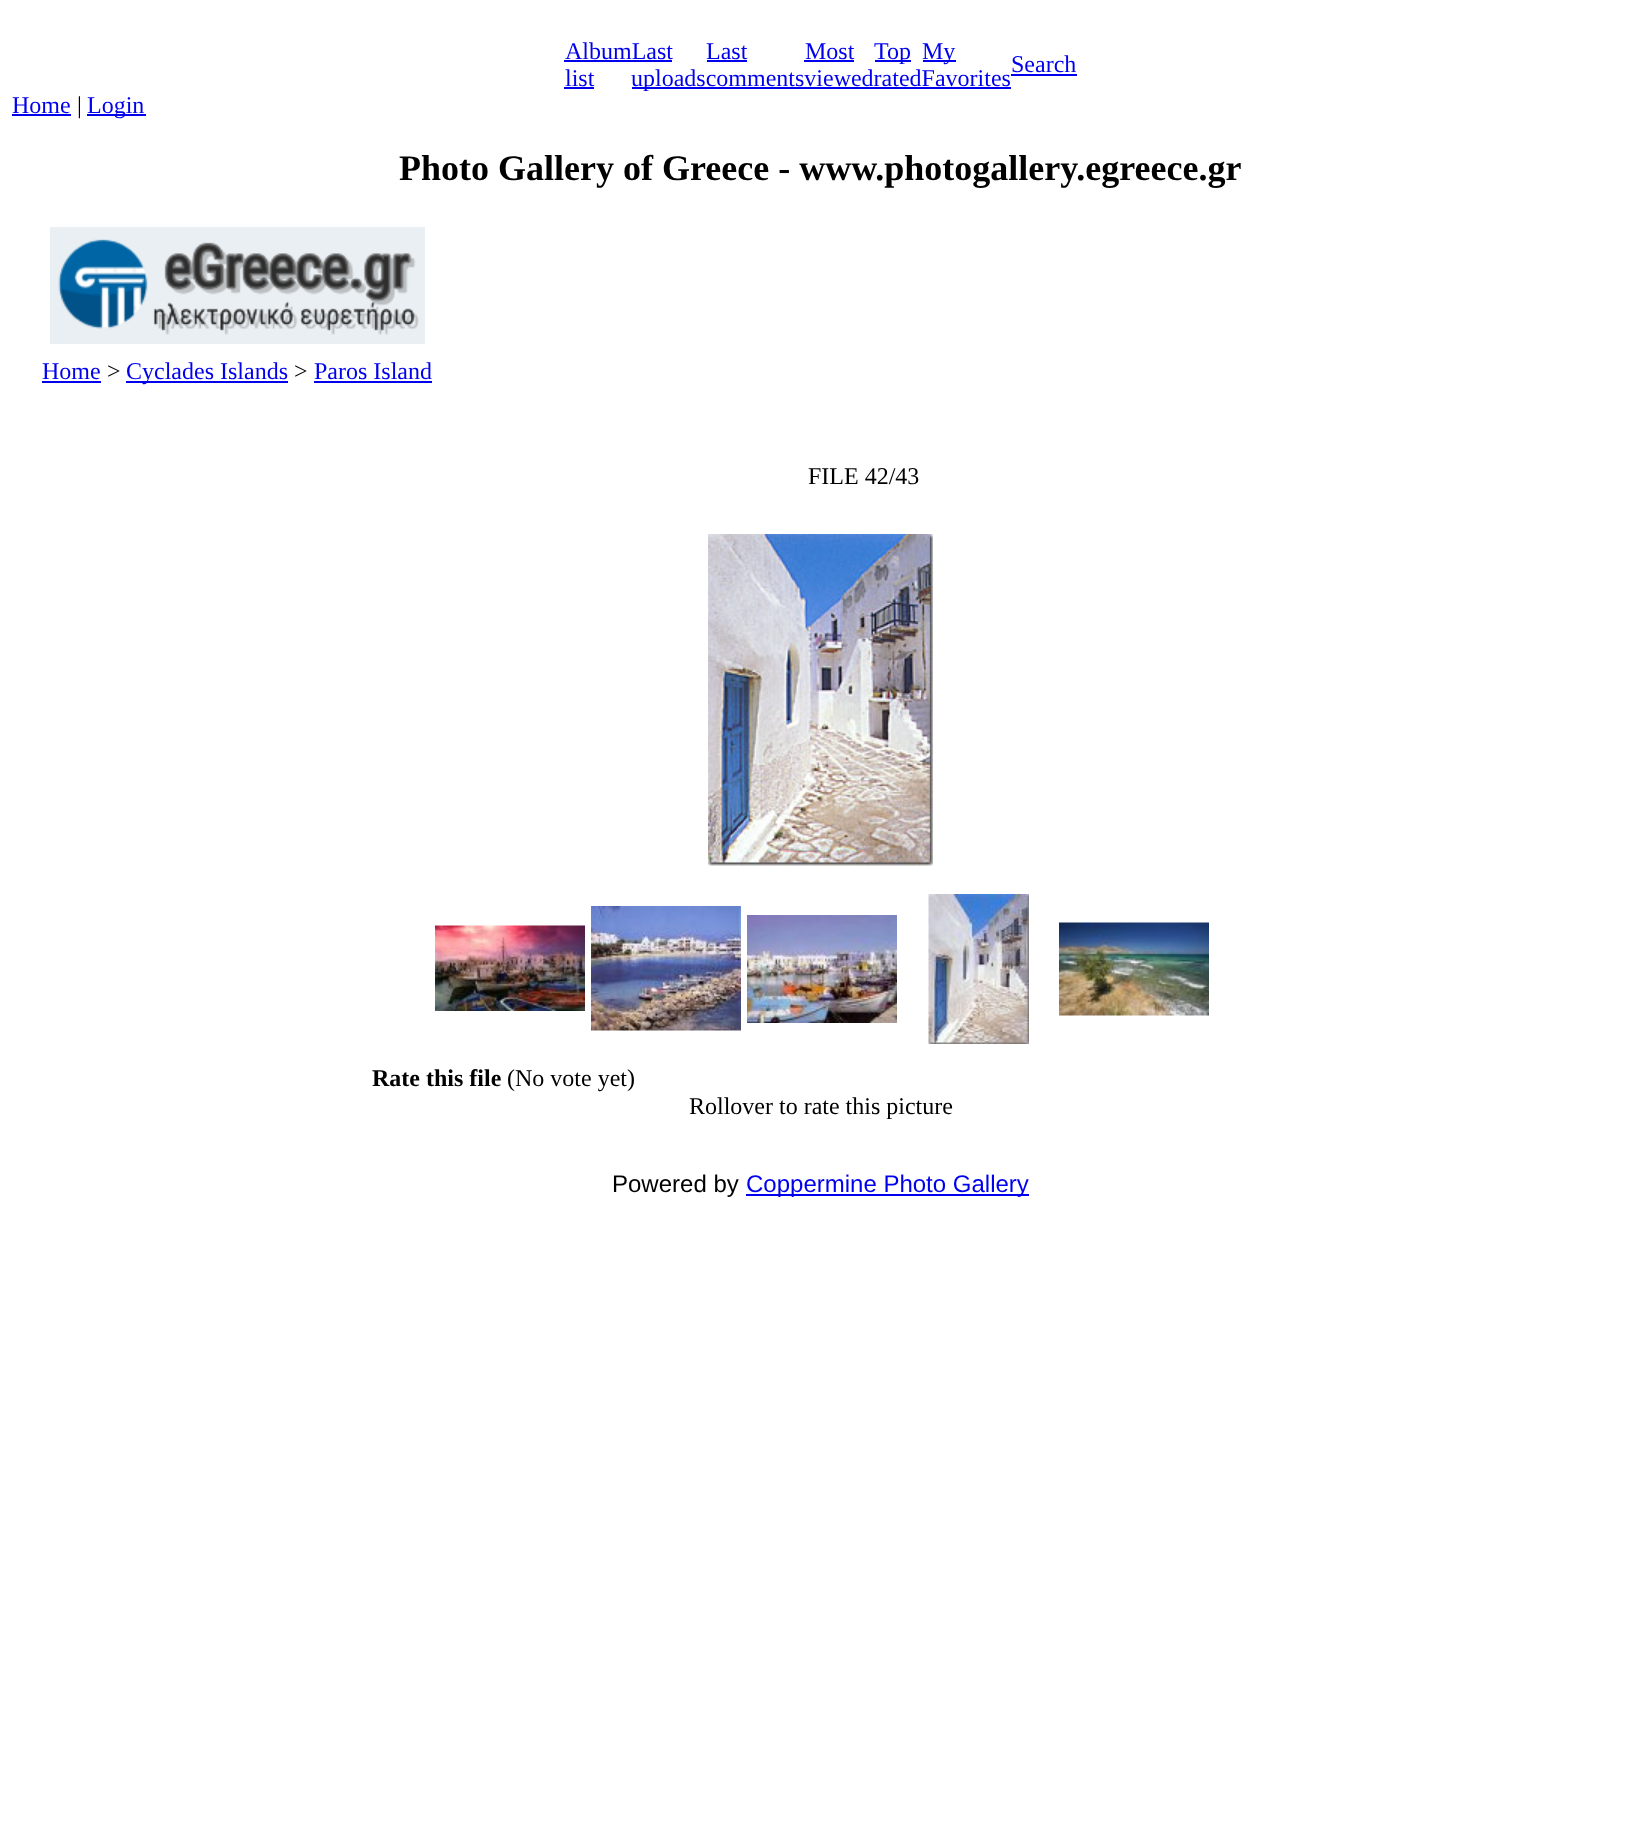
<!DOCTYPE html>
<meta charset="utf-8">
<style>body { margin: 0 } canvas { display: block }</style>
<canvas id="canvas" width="1641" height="1826"></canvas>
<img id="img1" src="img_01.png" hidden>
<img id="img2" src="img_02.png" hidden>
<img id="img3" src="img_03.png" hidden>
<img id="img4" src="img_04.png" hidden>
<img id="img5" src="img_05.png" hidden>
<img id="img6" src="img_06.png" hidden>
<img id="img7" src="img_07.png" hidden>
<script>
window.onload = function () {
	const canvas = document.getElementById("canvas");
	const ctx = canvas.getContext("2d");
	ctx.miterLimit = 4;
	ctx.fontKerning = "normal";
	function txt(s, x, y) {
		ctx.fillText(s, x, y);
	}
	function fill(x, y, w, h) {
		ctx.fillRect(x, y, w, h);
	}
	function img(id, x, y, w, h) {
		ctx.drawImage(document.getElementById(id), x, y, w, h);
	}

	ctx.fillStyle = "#FFFFFF";
	fill(0, 0, 1641, 1826);
	ctx.fillStyle = "#0000EE";
	fill(564, 60, 108, 2);
	fill(564, 87, 30, 2);
	fill(707, 60, 40, 2);
	fill(804, 60, 50, 2);
	fill(875, 60, 36, 2);
	fill(923, 60, 33, 2);
	fill(1011, 74, 66, 2);
	fill(632, 87, 379, 2);
	fill(12, 114, 59, 2);
	fill(87, 114, 59, 2);
	ctx.fillStyle = "#EAEFF3";
	fill(50, 227, 375, 117);
	img("img1", 58, 239, 361, 96);
	ctx.fillStyle = "#0000EE";
	fill(42, 381, 59, 2);
	fill(126, 381, 162, 2);
	fill(314, 381, 118, 2);
	img("img2", 708, 534, 225, 332);
	img("img3", 435, 925, 150, 86);
	img("img4", 591, 906, 150, 125);
	img("img5", 747, 915, 150, 108);
	img("img6", 928, 894, 101, 150);
	img("img7", 1059, 922, 150, 94);
	fill(746, 1194, 283, 2);
	ctx.font = "24px Liberation Serif";
	txt("AlbumLast", 565, 59);
	txt("list", 565, 86);
	txt("Last", 706, 59);
	txt("Most", 805, 59);
	txt("Top", 874, 59);
	txt("My", 922, 59);
	txt("Search", 1011, 72);
	txt("uploadscommentsviewedratedFavorites", 631, 86);
	txt("Home", 12, 113);
	ctx.fillStyle = "#000000";
	txt("|", 77, 113);
	ctx.fillStyle = "#0000EE";
	txt("Login", 87, 113);
	ctx.font = "bold 36px Liberation Serif";
	ctx.fillStyle = "#000000";
	txt("Photo Gallery of Greece - www.photogallery.egreece.gr", 399, 180);
	ctx.font = "24px Liberation Serif";
	ctx.fillStyle = "#0000EE";
	txt("Home", 42, 379);
	ctx.fillStyle = "#000000";
	txt(">", 107, 379);
	ctx.fillStyle = "#0000EE";
	txt("Cyclades Islands", 126, 379);
	ctx.fillStyle = "#000000";
	txt(">", 294, 379);
	ctx.fillStyle = "#0000EE";
	txt("Paros Island", 314, 379);
	ctx.fillStyle = "#000000";
	txt("FILE 42/43", 808, 484);
	ctx.font = "bold 24px Liberation Serif";
	txt("Rate this file", 372, 1086);
	ctx.font = "24px Liberation Serif";
	txt("(No vote yet)", 507, 1086);
	txt("Rollover to rate this picture", 689, 1114);
	ctx.font = "24px Liberation Sans";
	txt("Powered by", 612, 1192);
	ctx.fillStyle = "#0000EE";
	txt("Coppermine Photo Gallery", 746, 1192);
};
</script>
